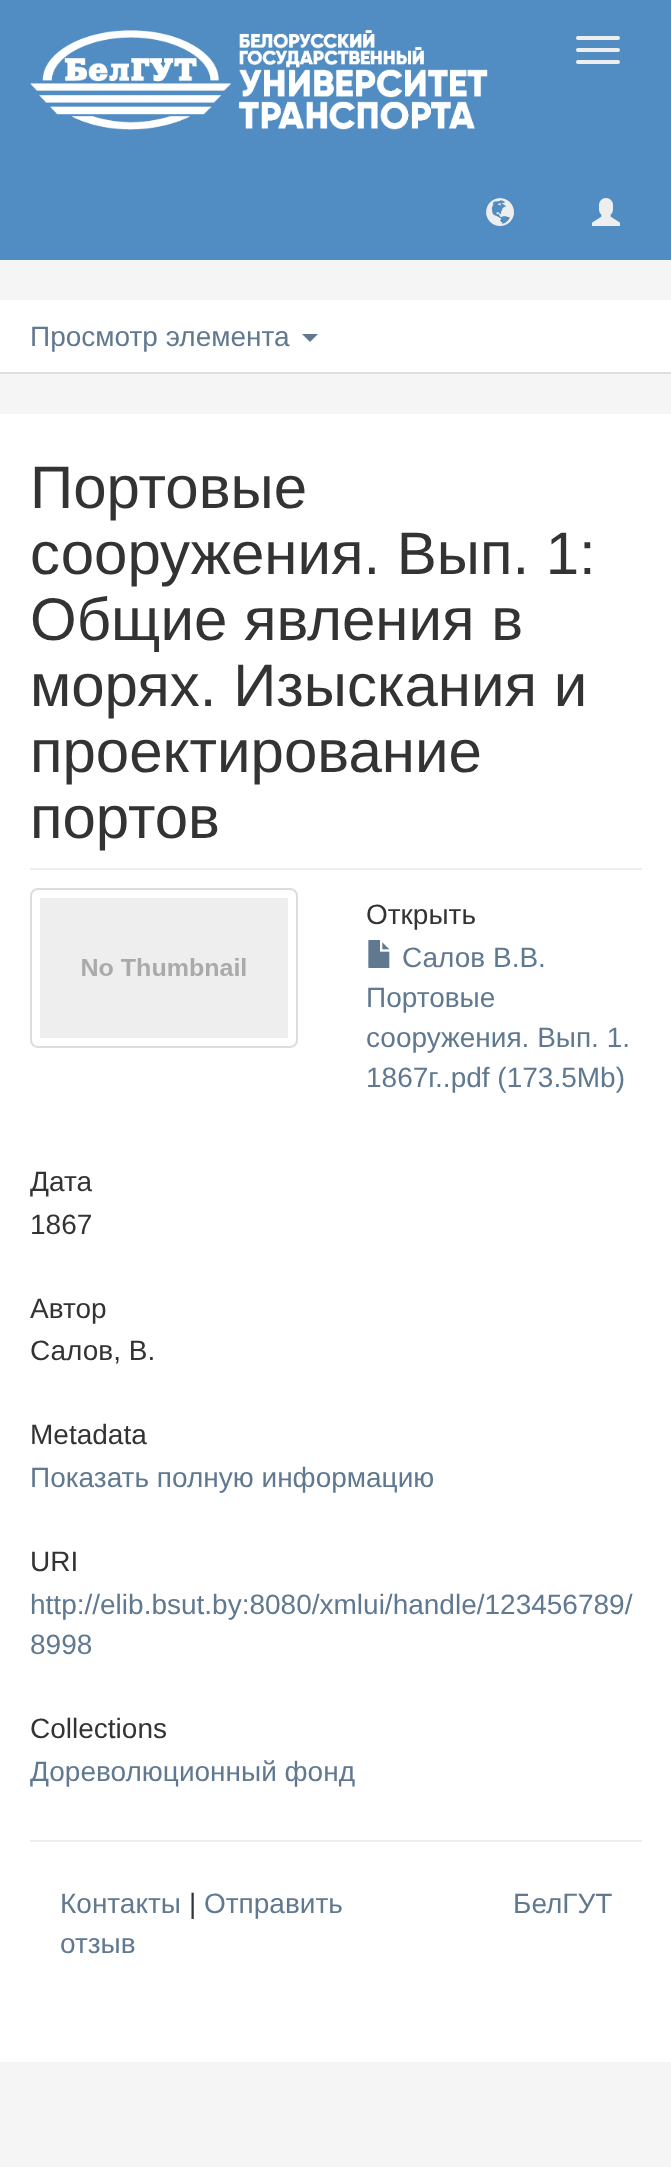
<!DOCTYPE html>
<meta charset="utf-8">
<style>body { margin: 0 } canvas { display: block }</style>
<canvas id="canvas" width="671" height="2167"></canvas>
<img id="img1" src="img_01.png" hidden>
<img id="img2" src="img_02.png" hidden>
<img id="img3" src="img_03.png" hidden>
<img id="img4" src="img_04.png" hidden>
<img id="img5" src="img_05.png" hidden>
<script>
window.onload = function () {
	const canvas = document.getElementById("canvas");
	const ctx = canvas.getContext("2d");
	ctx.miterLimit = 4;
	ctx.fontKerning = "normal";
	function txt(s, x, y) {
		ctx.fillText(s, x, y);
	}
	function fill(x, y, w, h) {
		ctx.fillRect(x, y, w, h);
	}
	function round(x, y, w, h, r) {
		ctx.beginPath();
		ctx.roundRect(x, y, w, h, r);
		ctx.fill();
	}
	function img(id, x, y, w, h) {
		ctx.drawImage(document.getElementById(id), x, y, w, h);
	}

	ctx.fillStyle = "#F5F5F5";
	fill(0, 0, 671, 2167);
	ctx.fillStyle = "#518CC3";
	fill(0, 0, 671, 260);
	img("img1", 30, 30, 458, 100);
	ctx.fillStyle = "#EEEEEE";
	round(576, 36, 44, 4, 2);
	round(576, 48, 44, 4, 2);
	round(576, 60, 44, 4, 2);
	img("img2", 486, 198, 28, 28);
	img("img3", 592, 198, 28, 28);
	ctx.fillStyle = "#FFFFFF";
	fill(0, 300, 671, 72);
	ctx.fillStyle = "#DFDFDF";
	fill(0, 372, 671, 2);
	ctx.fillStyle = "#607890";
	ctx.beginPath();
	ctx.moveTo(302, 334);
	ctx.lineTo(318, 334);
	ctx.lineTo(310, 342);
	ctx.closePath();
	ctx.fill();
	ctx.fillStyle = "#FFFFFF";
	fill(0, 414, 671, 1648);
	ctx.fillStyle = "#EEEEEE";
	fill(30, 868, 612, 2);
	ctx.beginPath();
	ctx.roundRect(31, 889, 266, 158, 7);
	ctx.strokeStyle = "#DDDDDD";
	ctx.lineWidth = 2;
	ctx.stroke();
	img("img4", 40, 898, 248, 140);
	img("img5", 368, 940, 22, 28);
	fill(30, 1840, 612, 2);
	ctx.font = "28px Liberation Sans";
	ctx.fillStyle = "#607890";
	txt("Просмотр элемента", 30, 346);
	ctx.font = "60px Liberation Sans";
	ctx.fillStyle = "#333333";
	txt("Портовые", 30, 508);
	txt("сооружения. Вып. 1:", 30, 574);
	txt("Общие явления в", 30, 640);
	txt("морях. Изыскания и", 30, 706);
	txt("проектирование", 30, 772);
	txt("портов", 30, 838);
	ctx.font = "28px Liberation Sans";
	txt("Открыть", 366, 924);
	ctx.fillStyle = "#607890";
	txt("Салов В.В.", 402, 967);
	txt("Портовые", 366, 1007);
	txt("сооружения. Вып. 1.", 366, 1047);
	txt("1867г..pdf (173.5Mb)", 366, 1087);
	ctx.fillStyle = "#333333";
	txt("Дата", 30, 1191);
	txt("1867", 30, 1234);
	txt("Автор", 30, 1318);
	txt("Салов, В.", 30, 1360);
	txt("Metadata", 30, 1444);
	ctx.fillStyle = "#607890";
	txt("Показать полную информацию", 30, 1487);
	ctx.fillStyle = "#333333";
	txt("URI", 30, 1571);
	ctx.fillStyle = "#607890";
	txt("http://elib.bsut.by:8080/xmlui/handle/123456789/", 30, 1614);
	txt("8998", 30, 1654);
	ctx.fillStyle = "#333333";
	txt("Collections", 30, 1738);
	ctx.fillStyle = "#607890";
	txt("Дореволюционный фонд", 30, 1781);
	txt("Контакты", 60, 1913);
	ctx.fillStyle = "#333333";
	txt("|", 189, 1913);
	ctx.fillStyle = "#607890";
	txt("Отправить", 204, 1913);
	txt("отзыв", 60, 1953);
	txt("БелГУТ", 513, 1913);
};
</script>
